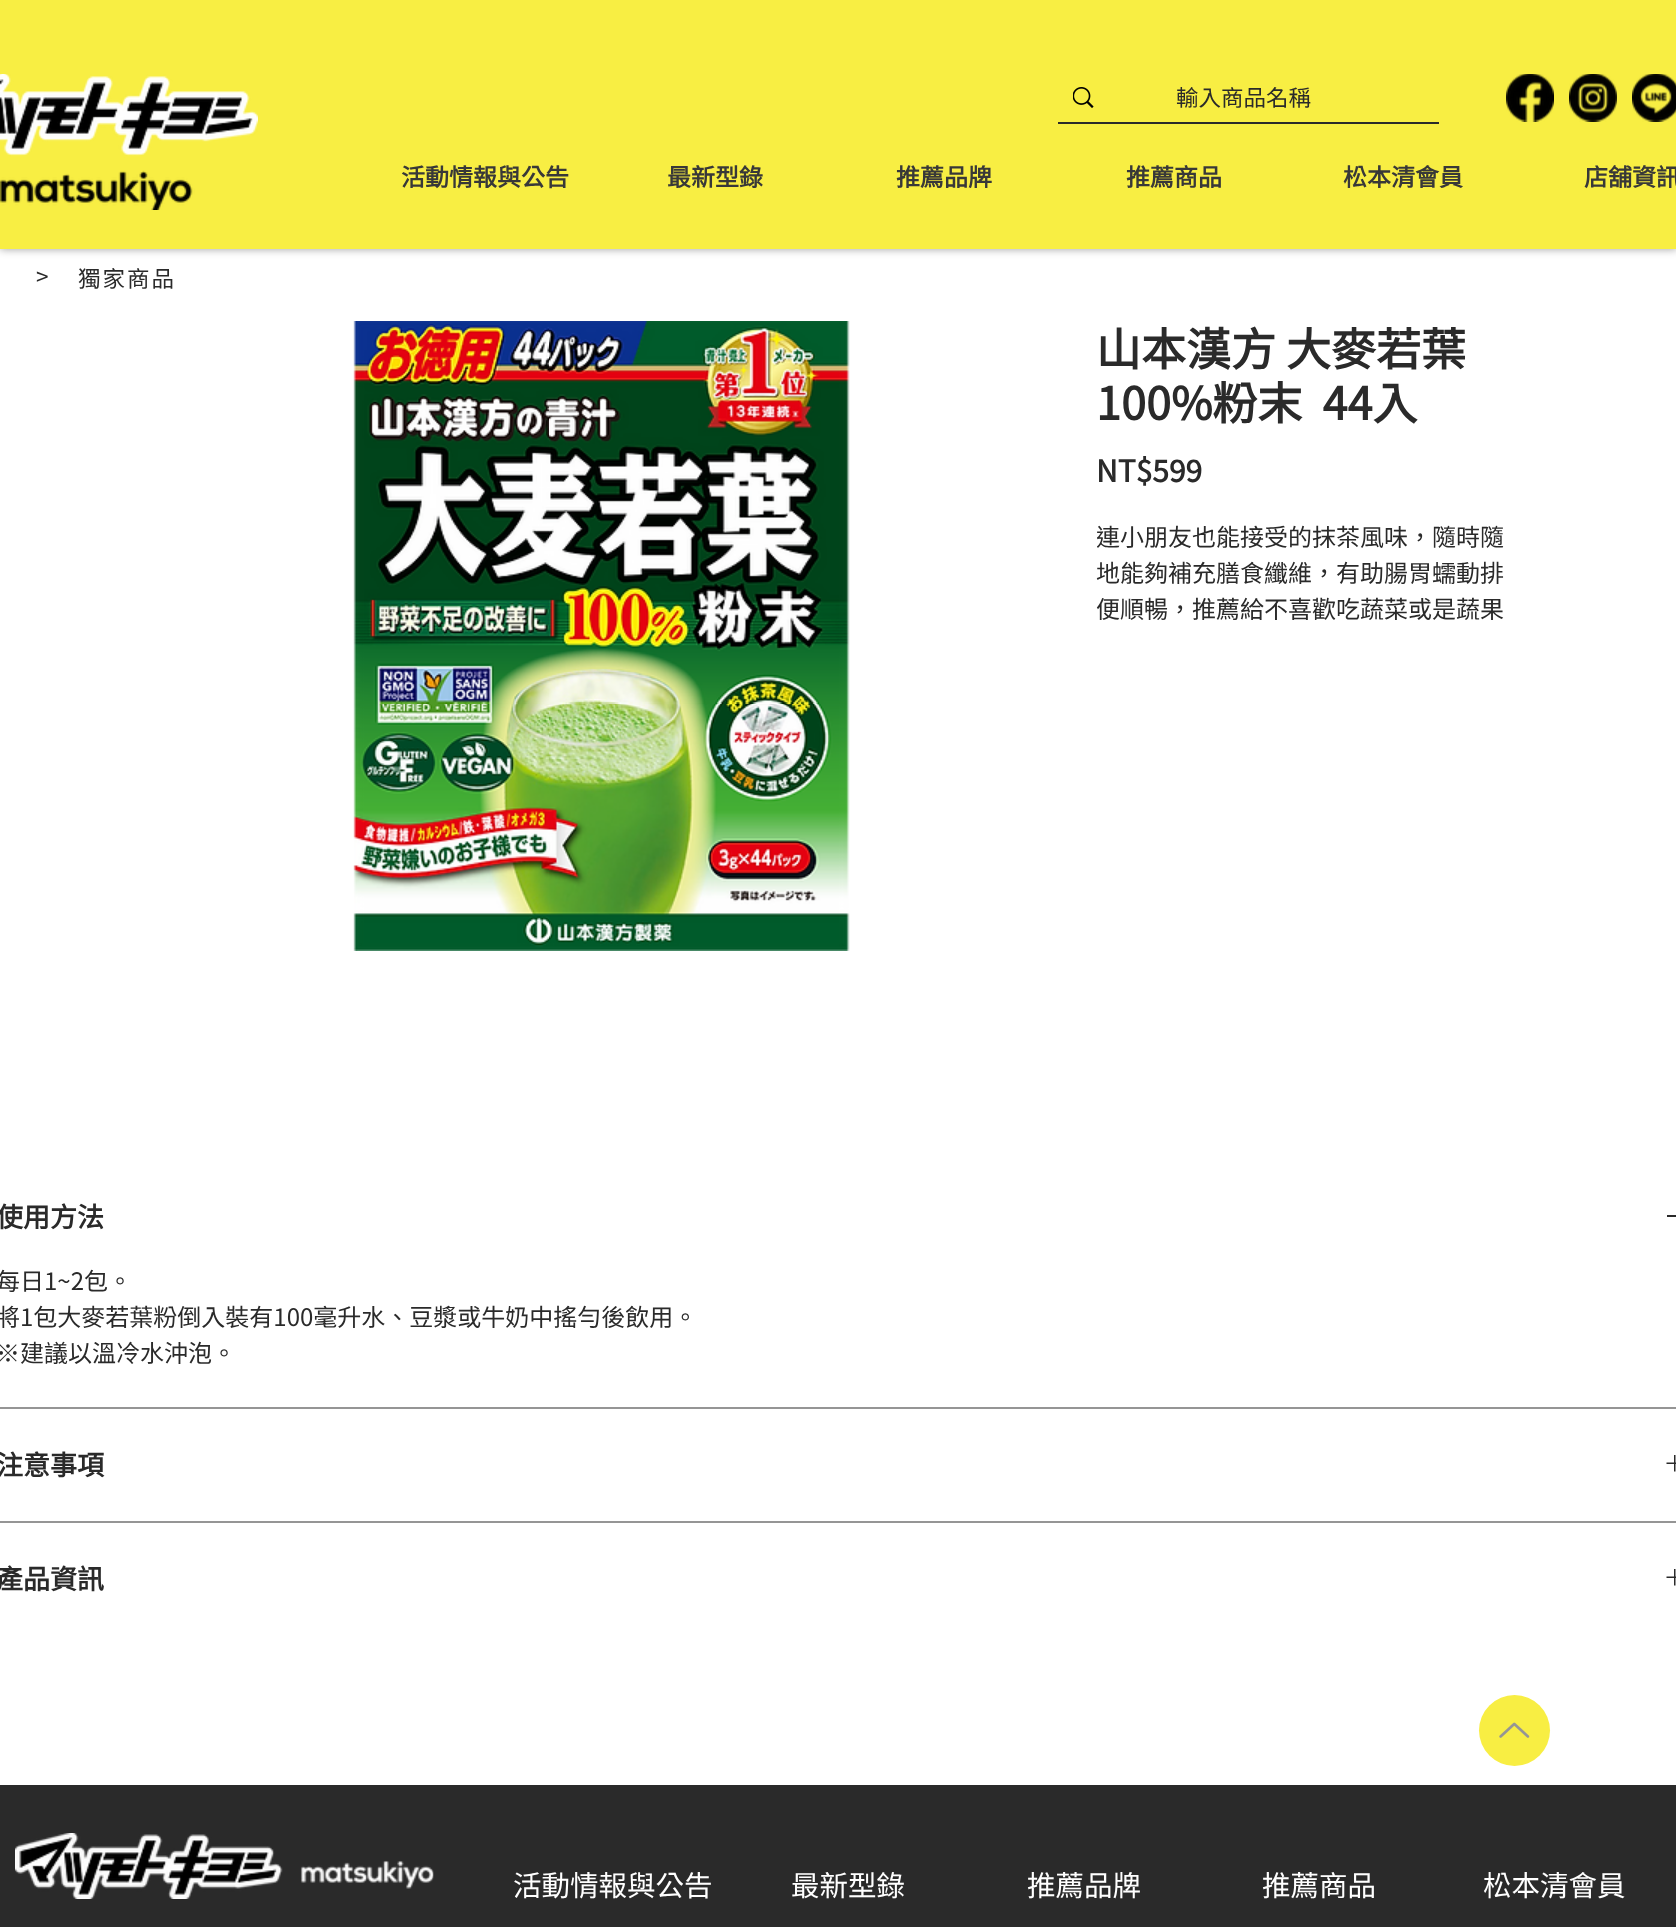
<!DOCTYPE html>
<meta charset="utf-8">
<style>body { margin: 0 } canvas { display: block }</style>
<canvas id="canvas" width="1676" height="1927"></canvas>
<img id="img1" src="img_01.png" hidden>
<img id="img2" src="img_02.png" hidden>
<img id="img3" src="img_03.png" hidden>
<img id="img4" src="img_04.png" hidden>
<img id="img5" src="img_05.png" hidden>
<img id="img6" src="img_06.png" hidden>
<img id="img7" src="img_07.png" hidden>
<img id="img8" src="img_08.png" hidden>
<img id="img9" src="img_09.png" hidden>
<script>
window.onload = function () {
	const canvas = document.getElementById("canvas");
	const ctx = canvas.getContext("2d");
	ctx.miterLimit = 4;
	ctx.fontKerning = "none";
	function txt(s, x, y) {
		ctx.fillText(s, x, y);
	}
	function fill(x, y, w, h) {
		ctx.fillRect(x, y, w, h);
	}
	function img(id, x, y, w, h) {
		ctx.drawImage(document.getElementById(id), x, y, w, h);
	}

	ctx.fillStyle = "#FFFFFF";
	fill(0, 0, 1676, 1927);
	ctx.fillStyle = "rgba(0, 0, 0, 0.39)";
	ctx.filter = "blur(4px)";
	ctx.beginPath();
	ctx.rect(0, 0, 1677, 249);
	ctx.fill();
	ctx.filter = "none";
	ctx.fillStyle = "#F8EE43";
	fill(0, 0, 1676, 249);
	img("img1", 0, 74, 258, 136);
	ctx.fillStyle = "#2A2A2A";
	fill(1058, 122, 381, 2);
	img("img2", 1073, 87, 21, 21);
	img("img3", 1506, 74, 48, 48);
	img("img4", 1569, 74, 48, 48);
	img("img5", 1632, 74, 44, 48);
	img("img6", 353, 321, 497, 630);
	ctx.fillStyle = "#959595";
	fill(0, 1407, 1676, 2);
	ctx.fillStyle = "#2A2A2A";
	fill(1667, 1215, 9, 2);
	ctx.fillStyle = "#959595";
	fill(0, 1521, 1676, 2);
	img("img7", 1666, 1455, 10, 17);
	img("img7", 1666, 1569, 10, 17);
	ctx.fillStyle = "#F8EE43";
	ctx.beginPath();
	ctx.arc(1514.5, 1730.5, 35.5, 0, Math.PI * 2);
	ctx.fill();
	img("img8", 1499, 1722, 31, 16);
	ctx.fillStyle = "#2A2A2A";
	fill(0, 1785, 1676, 142);
	img("img9", 15, 1833, 419, 66);
	ctx.font = "22.5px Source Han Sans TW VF";
	txt("輸入商品名稱", 1176, 106);
	ctx.font = "bold 24px Source Han Sans TW VF";
	ctx.fillStyle = "#383838";
	txt("活動情報與公告", 401, 186);
	txt("最新型錄", 667, 186);
	txt("推薦品牌", 896, 186);
	txt("推薦商品", 1126, 186);
	txt("松本清會員", 1343, 186);
	txt("店舖資訊", 1584, 186);
	ctx.font = "22.5px Source Han Sans TW VF";
	ctx.fillStyle = "#2A2A2A";
	txt(">", 36, 285);
	ctx.letterSpacing = "2px";
	txt("獨家商品", 78, 287);
	ctx.letterSpacing = "0px";
	ctx.font = "bold 45px Source Han Sans TW VF";
	txt("山本漢方 大麥若葉", 1096, 366);
	ctx.wordSpacing = "10px";
	txt("100%粉末 44入", 1096, 420);
	ctx.wordSpacing = "0px";
	ctx.font = "bold 30px Source Han Sans TW VF";
	txt("NT$599", 1096, 482);
	ctx.save();
	ctx.beginPath();
	ctx.rect(1097, 519, 420, 108);
	ctx.clip();
	ctx.font = "24px Source Han Sans TW VF";
	txt("連小朋友也能接受的抹茶風味，隨時隨", 1096, 546);
	ctx.restore();
	ctx.font = "24px Source Han Sans TW VF";
	txt("地能夠補充膳食纖維，有助腸胃蠕動排", 1096, 582);
	txt("便順暢，推薦給不喜歡吃蔬菜或是蔬果", 1096, 618);
	ctx.font = "bold 27px Source Han Sans TW VF";
	txt("使用方法", -4, 1227);
	ctx.font = "24px Source Han Sans TW VF";
	txt("每日1~2包。", -4, 1290);
	txt("將1包大麥若葉粉倒入裝有100毫升水、豆漿或牛奶中搖勻後飲用。", -4, 1326);
	txt("※建議以溫冷水沖泡。", -4, 1362);
	ctx.font = "bold 27px Source Han Sans TW VF";
	txt("注意事項", -4, 1475);
	txt("產品資訊", -4, 1589);
	ctx.font = "28.5px Source Han Sans TW VF";
	ctx.fillStyle = "#FFFFFF";
	txt("活動情報與公告", 513, 1896);
	txt("最新型錄", 791, 1896);
	txt("推薦品牌", 1027, 1896);
	txt("推薦商品", 1262, 1896);
	txt("松本清會員", 1483, 1896);
};
</script>
